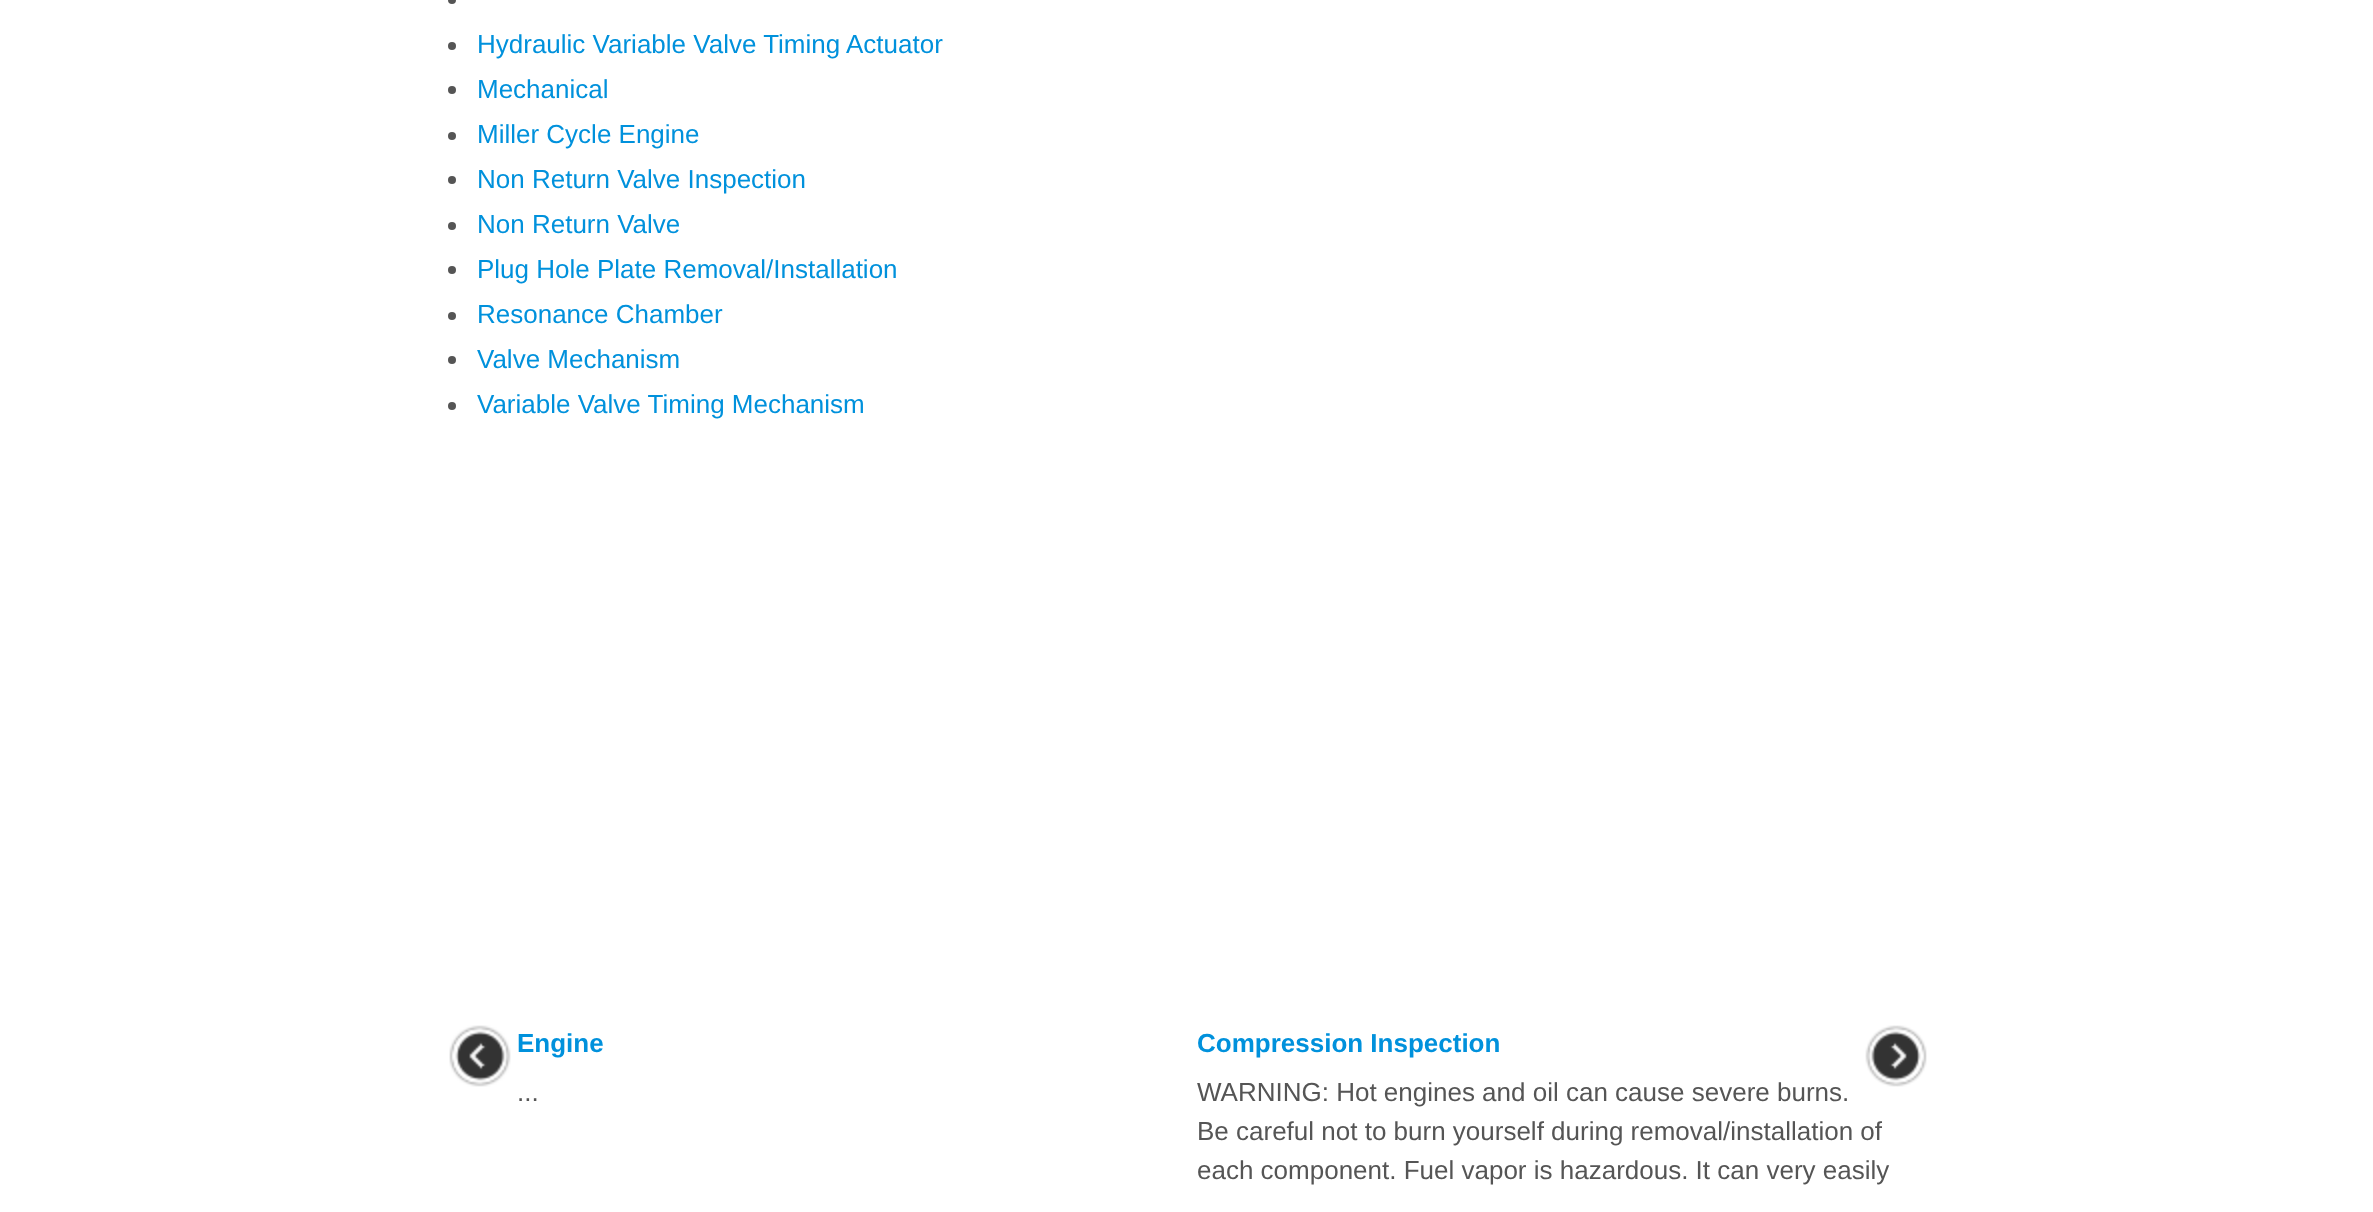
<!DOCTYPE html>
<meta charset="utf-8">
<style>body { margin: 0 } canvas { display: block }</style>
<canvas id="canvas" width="2373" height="1212"></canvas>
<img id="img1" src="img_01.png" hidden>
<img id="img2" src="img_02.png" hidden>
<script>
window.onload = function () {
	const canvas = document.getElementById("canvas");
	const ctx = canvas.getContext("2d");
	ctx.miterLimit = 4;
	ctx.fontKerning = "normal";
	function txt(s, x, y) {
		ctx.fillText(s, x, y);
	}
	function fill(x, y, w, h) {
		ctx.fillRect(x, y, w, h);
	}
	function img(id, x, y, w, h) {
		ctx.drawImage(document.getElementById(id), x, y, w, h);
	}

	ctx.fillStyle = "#FFFFFF";
	fill(0, 0, 2373, 1212);
	ctx.fillStyle = "#555555";
	ctx.beginPath();
	ctx.arc(452, 0, 4, 0, Math.PI * 2);
	ctx.fill();
	ctx.beginPath();
	ctx.arc(452, 46, 4, 0, Math.PI * 2);
	ctx.fill();
	ctx.beginPath();
	ctx.arc(452, 90, 4, 0, Math.PI * 2);
	ctx.fill();
	ctx.beginPath();
	ctx.arc(452, 136, 4, 0, Math.PI * 2);
	ctx.fill();
	ctx.beginPath();
	ctx.arc(452, 180, 4, 0, Math.PI * 2);
	ctx.fill();
	ctx.beginPath();
	ctx.arc(452, 226, 4, 0, Math.PI * 2);
	ctx.fill();
	ctx.beginPath();
	ctx.arc(452, 270, 4, 0, Math.PI * 2);
	ctx.fill();
	ctx.beginPath();
	ctx.arc(452, 316, 4, 0, Math.PI * 2);
	ctx.fill();
	ctx.beginPath();
	ctx.arc(452, 360, 4, 0, Math.PI * 2);
	ctx.fill();
	ctx.beginPath();
	ctx.arc(452, 406, 4, 0, Math.PI * 2);
	ctx.fill();
	img("img1", 449, 1025, 62, 62);
	img("img2", 1865, 1025, 62, 62);
	ctx.font = "26px Liberation Sans";
	ctx.fillStyle = "#0091DC";
	txt("Hydraulic Variable Valve Timing Actuator", 477, 53);
	txt("Mechanical", 477, 98);
	txt("Miller Cycle Engine", 477, 143);
	txt("Non Return Valve Inspection", 477, 188);
	txt("Non Return Valve", 477, 233);
	txt("Plug Hole Plate Removal/Installation", 477, 278);
	txt("Resonance Chamber", 477, 323);
	txt("Valve Mechanism", 477, 368);
	txt("Variable Valve Timing Mechanism", 477, 413);
	ctx.font = "bold 26px Liberation Sans";
	txt("Engine", 517, 1052);
	ctx.font = "26px Liberation Sans";
	ctx.fillStyle = "#555555";
	txt("...", 517, 1101);
	ctx.font = "bold 26px Liberation Sans";
	ctx.fillStyle = "#0091DC";
	txt("Compression Inspection", 1197, 1052);
	ctx.font = "26px Liberation Sans";
	ctx.fillStyle = "#555555";
	txt("WARNING: Hot engines and oil can cause severe burns.", 1197, 1101);
	txt("Be careful not to burn yourself during removal/installation of", 1197, 1140);
	txt("each component. Fuel vapor is hazardous. It can very easily", 1197, 1179);
};
</script>
